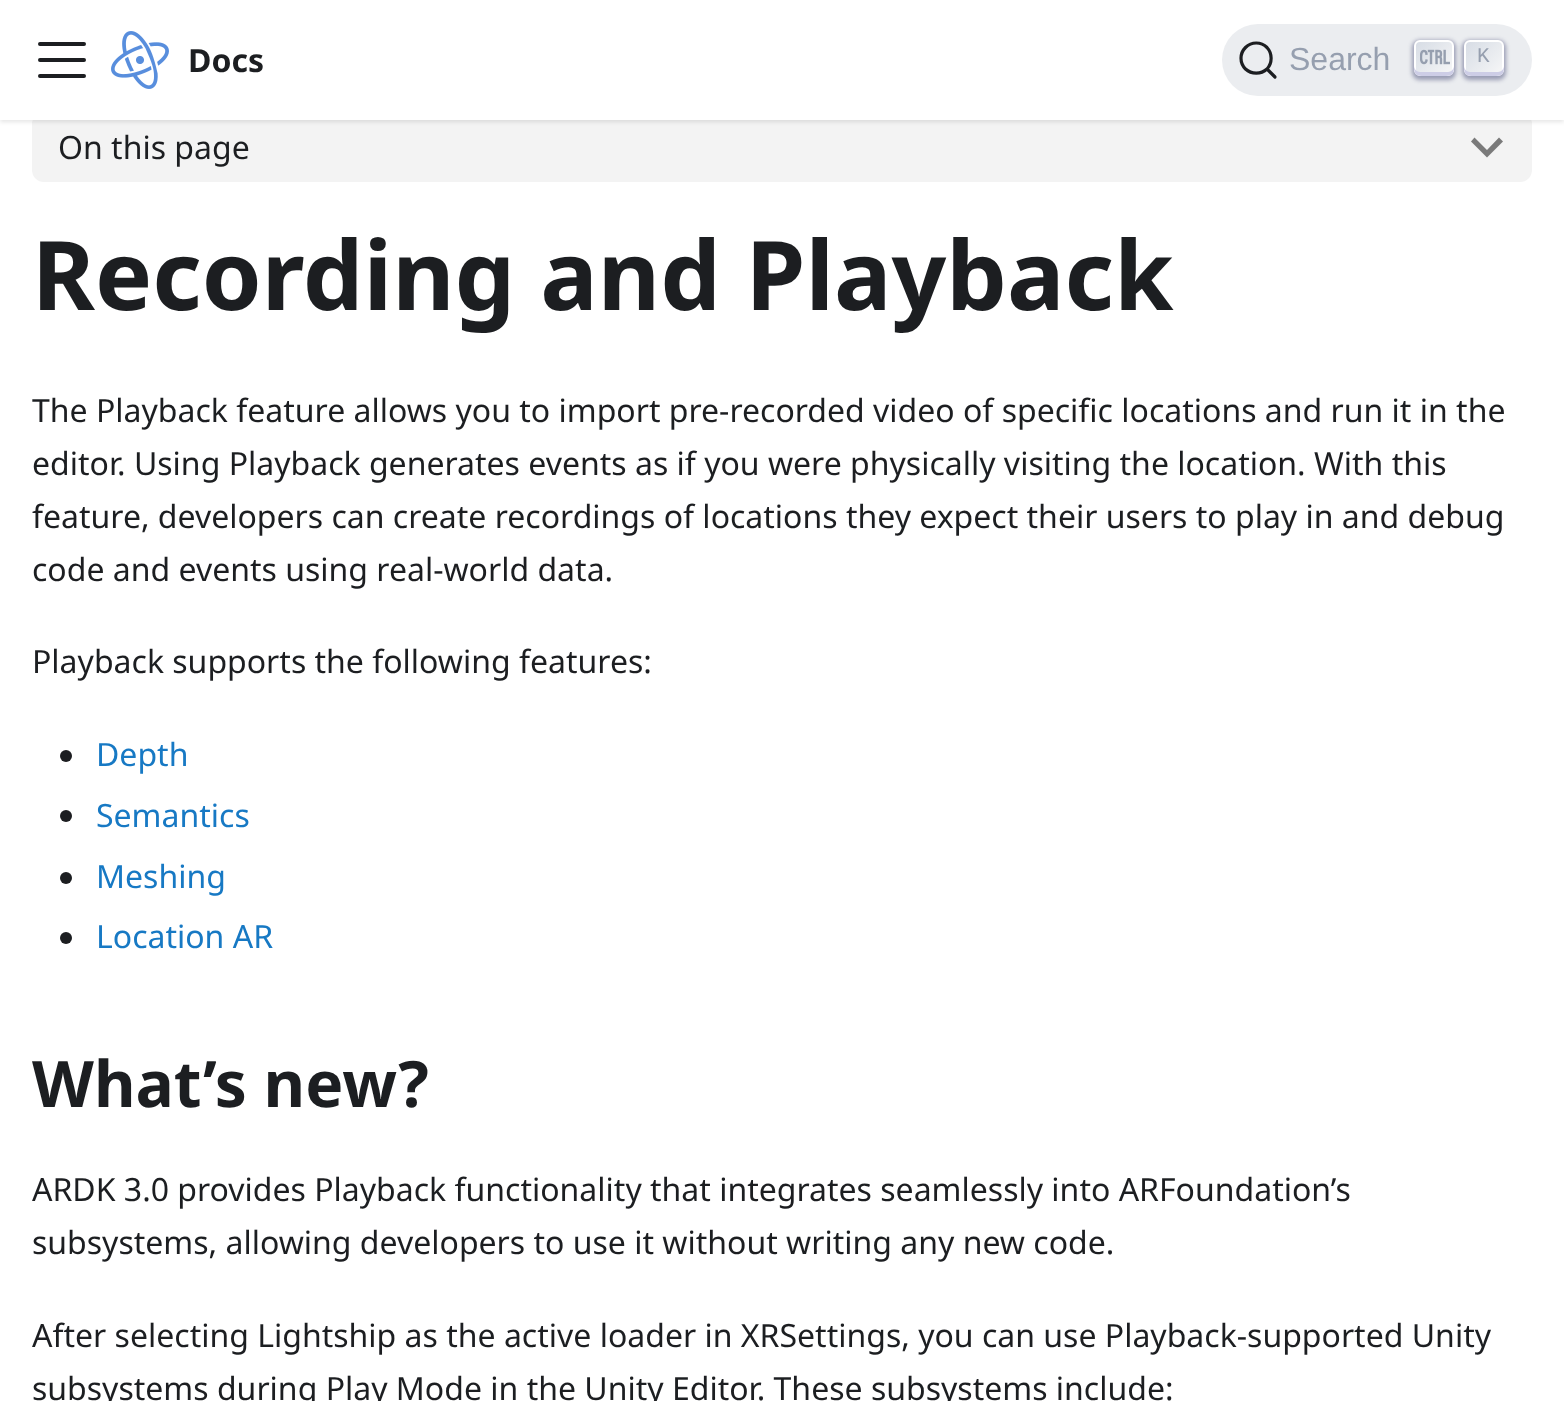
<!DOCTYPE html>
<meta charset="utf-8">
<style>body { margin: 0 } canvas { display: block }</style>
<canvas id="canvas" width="1564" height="1401"></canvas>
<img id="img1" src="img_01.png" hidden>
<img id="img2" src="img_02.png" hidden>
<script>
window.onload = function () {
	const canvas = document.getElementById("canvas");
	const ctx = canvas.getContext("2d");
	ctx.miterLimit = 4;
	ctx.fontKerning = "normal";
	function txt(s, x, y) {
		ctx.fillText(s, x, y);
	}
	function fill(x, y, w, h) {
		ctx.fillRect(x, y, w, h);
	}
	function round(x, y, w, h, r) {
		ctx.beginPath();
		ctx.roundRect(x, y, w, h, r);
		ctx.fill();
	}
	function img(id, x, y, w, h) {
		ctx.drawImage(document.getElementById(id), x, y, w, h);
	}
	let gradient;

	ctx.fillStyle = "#FFFFFF";
	fill(0, 0, 1564, 1401);
	ctx.fillStyle = "#F3F3F3";
	round(32, 112, 1500, 70, 12);
	ctx.fillStyle = "rgba(0, 0, 0, 0.1)";
	ctx.filter = "blur(2px)";
	ctx.beginPath();
	ctx.rect(0, 2, 1564, 120);
	ctx.fill();
	ctx.filter = "none";
	ctx.fillStyle = "#FFFFFF";
	fill(0, 0, 1564, 120);
	ctx.beginPath();
	ctx.moveTo(40, 44);
	ctx.lineTo(84, 44);
	ctx.moveTo(40, 60);
	ctx.lineTo(84, 60);
	ctx.moveTo(40, 76);
	ctx.lineTo(84, 76);
	ctx.strokeStyle = "#1C1E21";
	ctx.lineWidth = 4;
	ctx.lineCap = "round";
	ctx.stroke();
	img("img1", 111, 31, 58, 58);
	ctx.fillStyle = "#EBEDF0";
	round(1222, 24, 310, 72, 36);
	ctx.beginPath();
	ctx.moveTo(1267, 69);
	ctx.lineTo(1275, 77);
	ctx.lineTo(1267, 69);
	ctx.bezierCurveTo(1261, 74.5, 1251.5, 74.5, 1245.5, 69);
	ctx.bezierCurveTo(1239.5, 63, 1239.5, 53.5, 1245.5, 47.5);
	ctx.bezierCurveTo(1251.5, 41.5, 1261, 41.5, 1267, 47.5);
	ctx.bezierCurveTo(1272.5, 53.5, 1272.5, 63, 1267, 69);
	ctx.closePath();
	ctx.lineWidth = 3.2;
	ctx.lineJoin = "round";
	ctx.stroke();
	ctx.fillStyle = "rgba(30, 35, 90, 0.4)";
	ctx.filter = "blur(2px)";
	ctx.beginPath();
	ctx.roundRect(1412, 40, 44, 40, 8);
	ctx.fill();
	ctx.filter = "none";
	gradient = ctx.createLinearGradient(1415, 39, 1453, 77);
	gradient.addColorStop(0, "#D5DBE4");
	gradient.addColorStop(1, "#F8F8F8");
	ctx.fillStyle = gradient;
	ctx.beginPath();
	ctx.roundRect(1415, 41, 38, 34, 5);
	ctx.fill();
	ctx.strokeStyle = "#FFFFFF";
	ctx.lineWidth = 2;
	ctx.lineJoin = "miter";
	ctx.stroke();
	ctx.fillStyle = "#CDCDE6";
	ctx.beginPath();
	ctx.moveTo(1414, 66);
	ctx.bezierCurveTo(1414, 75, 1416, 76, 1425, 76);
	ctx.lineTo(1443, 76);
	ctx.bezierCurveTo(1452, 76, 1454, 75, 1454, 66);
	ctx.bezierCurveTo(1454, 69, 1451, 72, 1448, 72);
	ctx.lineTo(1420, 72);
	ctx.bezierCurveTo(1417, 72, 1414, 69, 1414, 66);
	ctx.closePath();
	ctx.fill();
	img("img2", 1420, 49, 30, 16);
	ctx.fillStyle = "rgba(30, 35, 90, 0.4)";
	ctx.filter = "blur(2px)";
	ctx.beginPath();
	ctx.roundRect(1462, 40, 44, 40, 8);
	ctx.fill();
	ctx.filter = "none";
	gradient = ctx.createLinearGradient(1465, 39, 1503, 77);
	gradient.addColorStop(0, "#D5DBE4");
	gradient.addColorStop(1, "#F8F8F8");
	ctx.fillStyle = gradient;
	ctx.beginPath();
	ctx.roundRect(1465, 41, 38, 34, 5);
	ctx.fill();
	ctx.stroke();
	ctx.fillStyle = "#CDCDE6";
	ctx.beginPath();
	ctx.moveTo(1464, 66);
	ctx.bezierCurveTo(1464, 75, 1466, 76, 1475, 76);
	ctx.lineTo(1493, 76);
	ctx.bezierCurveTo(1502, 76, 1504, 75, 1504, 66);
	ctx.bezierCurveTo(1504, 69, 1501, 72, 1498, 72);
	ctx.lineTo(1470, 72);
	ctx.bezierCurveTo(1467, 72, 1464, 69, 1464, 66);
	ctx.closePath();
	ctx.fill();
	ctx.fillStyle = "#7A7A7A";
	ctx.beginPath();
	ctx.moveTo(1499, 137.5);
	ctx.lineTo(1487, 150);
	ctx.lineTo(1474.5, 137.5);
	ctx.lineTo(1471, 141.5);
	ctx.lineTo(1487, 157.5);
	ctx.lineTo(1503, 141.5);
	ctx.closePath();
	ctx.fill();
	ctx.fillStyle = "#1C1E21";
	ctx.beginPath();
	ctx.arc(66, 756, 6, 0, Math.PI * 2);
	ctx.fill();
	ctx.beginPath();
	ctx.arc(66, 816, 6, 0, Math.PI * 2);
	ctx.fill();
	ctx.beginPath();
	ctx.arc(66, 878, 6, 0, Math.PI * 2);
	ctx.fill();
	ctx.beginPath();
	ctx.arc(66, 938, 6, 0, Math.PI * 2);
	ctx.fill();
	ctx.font = "bold 32px Noto Sans";
	txt("Docs", 188, 72);
	ctx.font = "32px Liberation Sans";
	ctx.fillStyle = "#969FAF";
	txt("Search", 1289, 70);
	ctx.font = "21px Liberation Mono";
	txt("K", 1477, 62);
	ctx.font = "32px Noto Sans";
	ctx.fillStyle = "#1C1E21";
	txt("On this page", 58, 159);
	ctx.font = "bold 96px Noto Sans";
	txt("Recording and Playback", 32, 310);
	ctx.font = "32px Noto Sans";
	txt("The Playback feature allows you to import pre-recorded video of specific locations and run it in the", 32, 422);
	txt("editor. Using Playback generates events as if you were physically visiting the location. With this", 32, 475);
	txt("feature, developers can create recordings of locations they expect their users to play in and debug", 32, 528);
	txt("code and events using real-world data.", 32, 581);
	txt("Playback supports the following features:", 32, 673);
	ctx.fillStyle = "#1779C4";
	txt("Depth", 96, 766);
	txt("Semantics", 96, 827);
	txt("Meshing", 96, 888);
	txt("Location AR", 96, 948);
	ctx.font = "bold 64px Noto Sans";
	ctx.fillStyle = "#1C1E21";
	txt("What’s new?", 32, 1107);
	ctx.font = "32px Noto Sans";
	txt("ARDK 3.0 provides Playback functionality that integrates seamlessly into ARFoundation’s", 32, 1201);
	txt("subsystems, allowing developers to use it without writing any new code.", 32, 1254);
	txt("After selecting Lightship as the active loader in XRSettings, you can use Playback-supported Unity", 32, 1347);
	txt("subsystems during Play Mode in the Unity Editor. These subsystems include:", 32, 1400);
};
</script>
